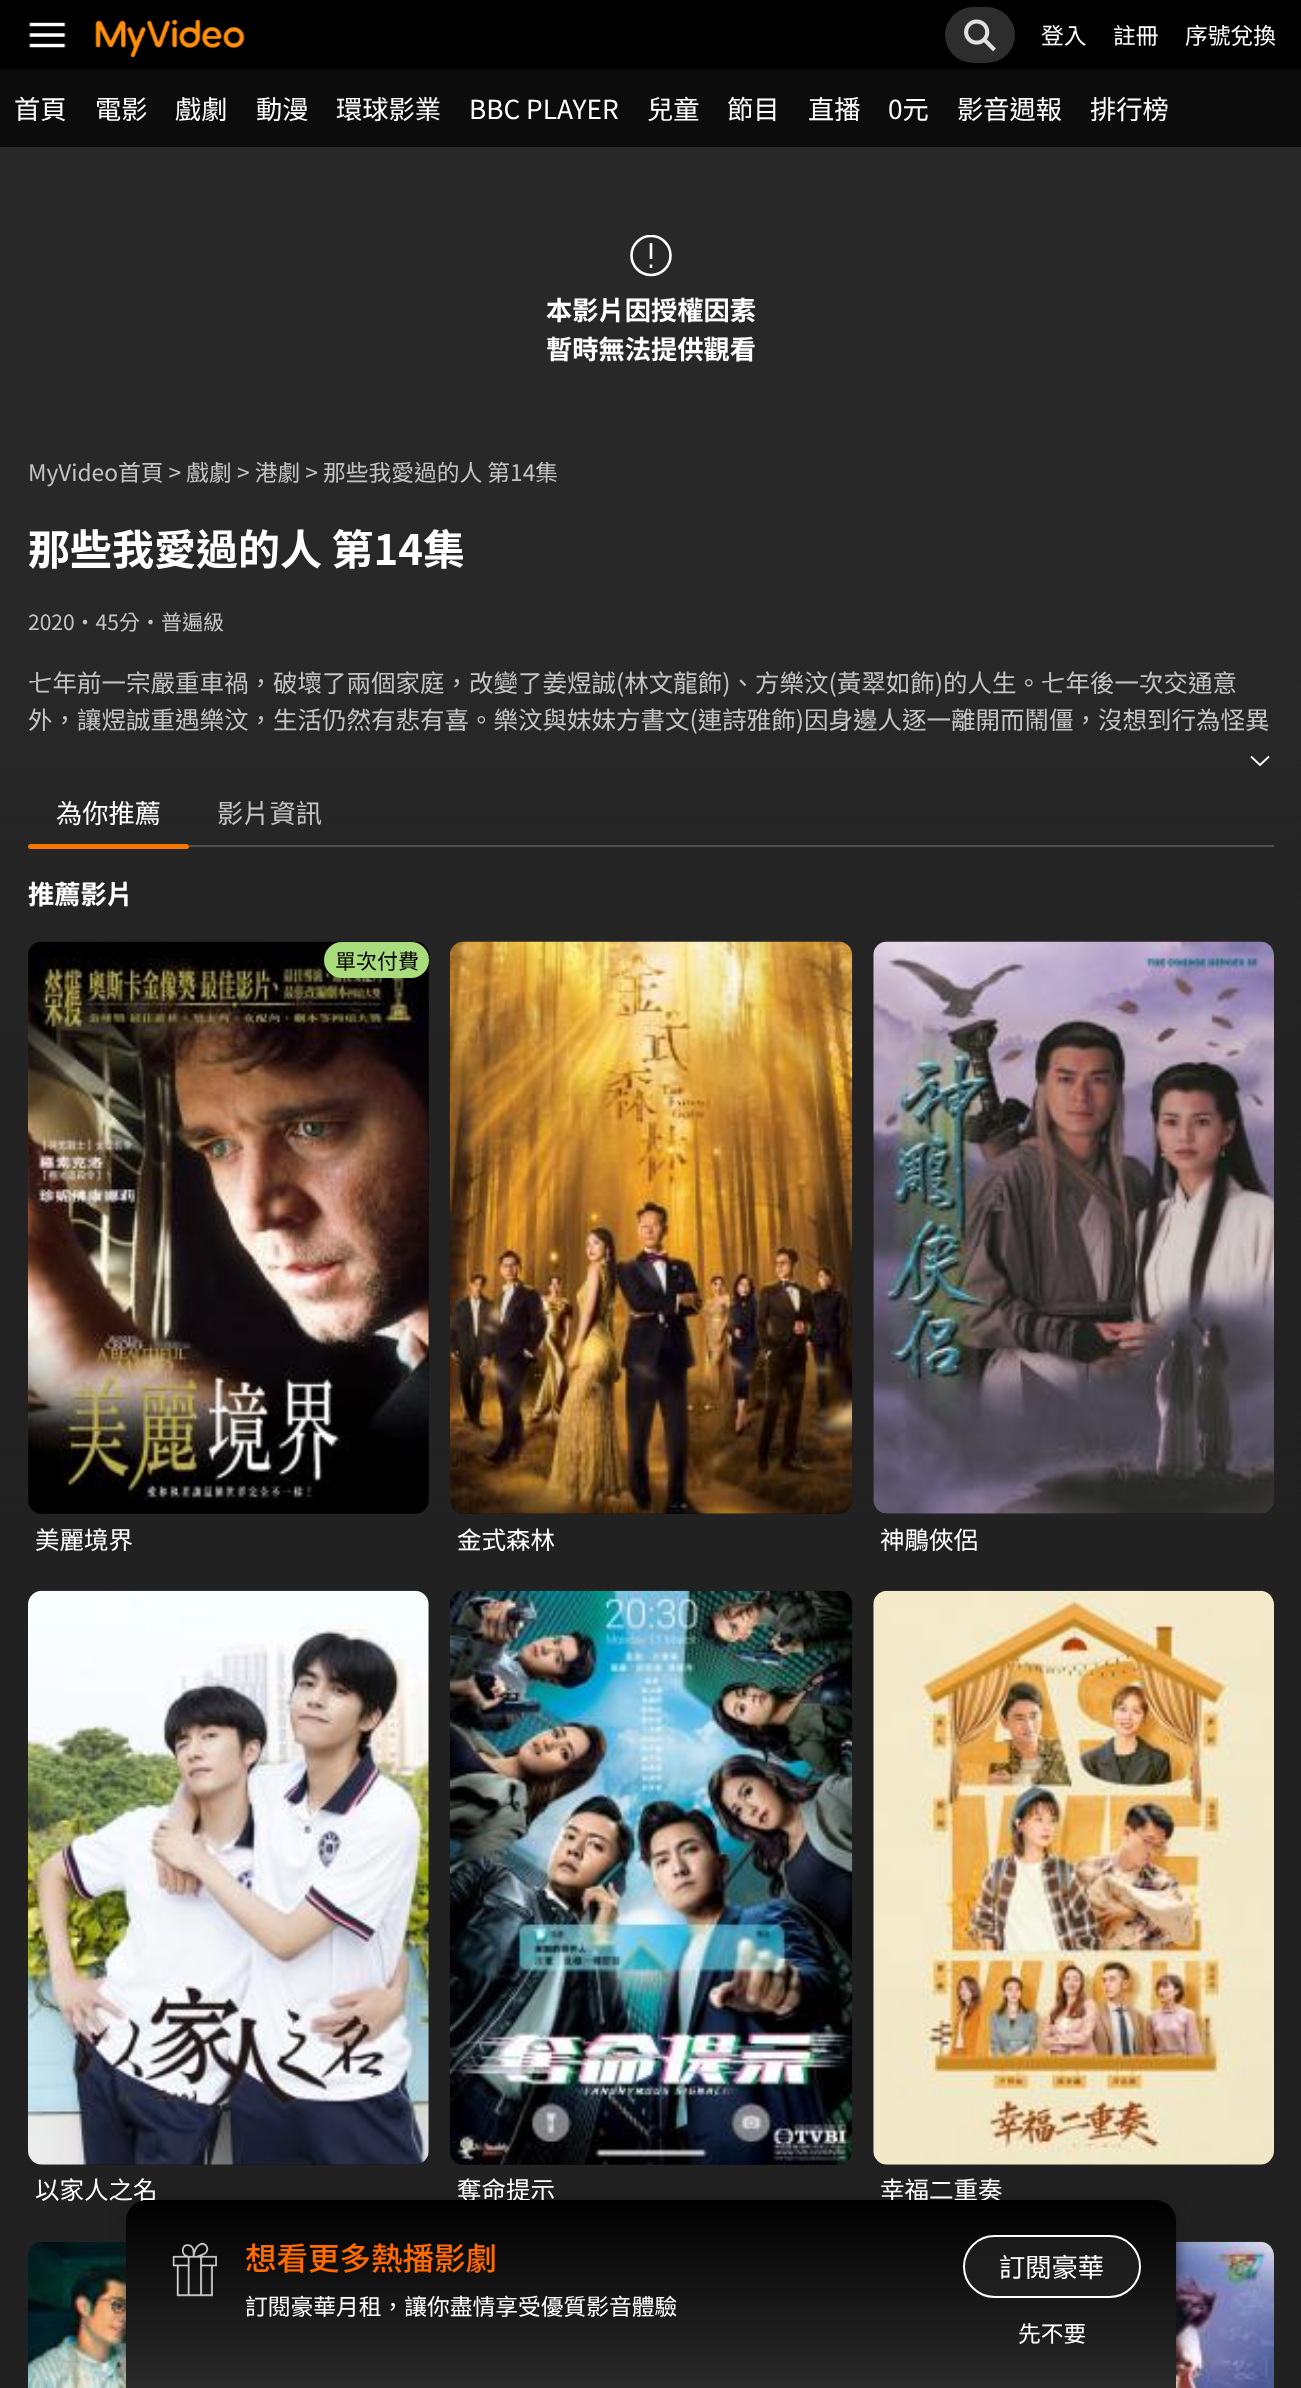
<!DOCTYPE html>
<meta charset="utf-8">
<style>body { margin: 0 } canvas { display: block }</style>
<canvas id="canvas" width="1301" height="2388"></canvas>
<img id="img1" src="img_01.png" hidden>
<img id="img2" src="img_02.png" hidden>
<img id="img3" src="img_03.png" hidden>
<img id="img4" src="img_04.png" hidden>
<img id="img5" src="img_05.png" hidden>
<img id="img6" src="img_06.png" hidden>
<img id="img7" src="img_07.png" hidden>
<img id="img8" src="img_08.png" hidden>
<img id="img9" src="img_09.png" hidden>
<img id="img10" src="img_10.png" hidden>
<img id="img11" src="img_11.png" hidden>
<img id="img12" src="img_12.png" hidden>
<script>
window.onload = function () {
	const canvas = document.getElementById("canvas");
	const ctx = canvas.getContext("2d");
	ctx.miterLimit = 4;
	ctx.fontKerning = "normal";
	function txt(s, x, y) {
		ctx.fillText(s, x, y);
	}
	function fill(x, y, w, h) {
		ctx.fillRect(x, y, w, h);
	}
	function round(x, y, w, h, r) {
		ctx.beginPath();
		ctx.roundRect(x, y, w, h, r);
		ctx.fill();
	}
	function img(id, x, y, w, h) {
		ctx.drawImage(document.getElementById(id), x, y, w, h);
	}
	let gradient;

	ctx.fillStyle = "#FFFFFF";
	fill(0, 0, 1301, 2388);
	ctx.fillStyle = "#000000";
	fill(0, 0, 1301, 70);
	img("img1", 29, 22, 37, 26);
	img("img2", 95, 19, 150, 38);
	ctx.fillStyle = "#2D2D2D";
	round(945, 7, 70, 56, 28);
	img("img3", 964, 19, 32, 33);
	ctx.fillStyle = "#0C0C0C";
	fill(0, 70, 1301, 77);
	gradient = ctx.createLinearGradient(651, 147, 651, 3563);
	gradient.addColorStop(0.15, "#282828");
	gradient.addColorStop(0.21, "#252525");
	gradient.addColorStop(0.27, "#232323");
	gradient.addColorStop(0.43, "#212121");
	ctx.fillStyle = gradient;
	fill(0, 147, 1301, 2241);
	ctx.save();
	ctx.beginPath();
	ctx.rect(630, 235, 42, 42);
	ctx.clip();
	ctx.beginPath();
	ctx.arc(651, 255.5, 19.5, 0, Math.PI * 2);
	ctx.strokeStyle = "#FFFFFF";
	ctx.lineWidth = 2.6;
	ctx.stroke();
	ctx.restore();
	ctx.beginPath();
	ctx.moveTo(651, 243);
	ctx.lineTo(651, 259);
	ctx.moveTo(651, 268);
	ctx.lineTo(651, 264.5);
	ctx.strokeStyle = "#FFFFFF";
	ctx.lineWidth = 2.6;
	ctx.stroke();
	ctx.beginPath();
	ctx.moveTo(1269, 756.5);
	ctx.lineTo(1260, 765);
	ctx.lineTo(1251, 756.5);
	ctx.lineWidth = 1.8;
	ctx.stroke();
	ctx.fillStyle = "#515151";
	fill(28, 845, 1246, 2);
	ctx.fillStyle = "#F57600";
	round(28, 844, 161, 5, 2.5);
	ctx.fillStyle = "#121212";
	round(28, 942, 401, 572, 14);
	img("img4", 28, 941, 401, 573);
	ctx.fillStyle = "#A8DC7D";
	round(324, 942, 105, 36, 18);
	ctx.fillStyle = "#121212";
	round(450, 942, 402, 572, 14);
	img("img5", 449, 941, 404, 573);
	round(873, 942, 401, 572, 14);
	img("img6", 873, 941, 401, 573);
	round(28, 1591, 401, 574, 14);
	img("img7", 28, 1590, 401, 575);
	round(450, 1591, 402, 574, 14);
	img("img8", 449, 1590, 404, 575);
	round(873, 1591, 401, 574, 14);
	img("img9", 873, 1590, 401, 575);
	img("img10", 28, 2242, 98, 146);
	img("img11", 1176, 2241, 98, 147);
	ctx.fillStyle = "rgba(27, 27, 27, 0.8)";
	ctx.filter = "blur(7px)";
	ctx.beginPath();
	ctx.roundRect(126, 2198, 1050, 189, 21);
	ctx.fill();
	ctx.filter = "none";
	ctx.font = "22.75px Noto Sans TC";
	ctx.fillStyle = "#FFFFFF";
	txt("登入", 1041, 44);
	txt("註冊", 1113, 44);
	txt("序號兌換", 1185, 44);
	ctx.font = "26.25px Noto Sans TC";
	txt("首頁", 14, 119);
	txt("電影", 95, 119);
	txt("戲劇", 175, 119);
	txt("動漫", 256, 119);
	txt("環球影業", 336, 119);
	txt("BBC PLAYER", 469, 119);
	txt("兒童", 647, 119);
	txt("節目", 727, 119);
	txt("直播", 808, 119);
	txt("0元", 888, 119);
	txt("影音週報", 957, 119);
	txt("排行榜", 1090, 119);
	ctx.font = "bold 26.25px Noto Sans TC";
	txt("本影片因授權因素", 546, 320);
	txt("暫時無法提供觀看", 546, 359);
	ctx.font = "22.75px Noto Sans TC";
	ctx.fillStyle = "#C4C4C4";
	txt("MyVideo首頁 > 戲劇 > 港劇 > 那些我愛過的人 第14集", 28, 481);
	ctx.font = "bold 42px Noto Sans TC";
	ctx.fillStyle = "#FFFFFF";
	txt("那些我愛過的人 第14集", 28, 565);
	ctx.font = "21px Noto Sans TC";
	ctx.fillStyle = "#C4C4C4";
	txt("2020・45分・普遍級", 28, 630);
	ctx.font = "24.5px Noto Sans TC";
	txt("七年前一宗嚴重車禍，破壞了兩個家庭，改變了姜煜誠(林文龍飾)、方樂汶(黃翠如飾)的人生。七年後一次交通意", 28, 692);
	txt("外，讓煜誠重遇樂汶，生活仍然有悲有喜。樂汶與妹妹方書文(連詩雅飾)因身邊人逐一離開而鬧僵，沒想到行為怪異", 28, 729);
	ctx.font = "26.25px Noto Sans TC";
	ctx.fillStyle = "#FFFFFF";
	txt("為你推薦", 56, 823);
	ctx.fillStyle = "#C4C4C4";
	txt("影片資訊", 217, 823);
	ctx.font = "bold 26.25px Noto Sans TC";
	ctx.fillStyle = "#FFFFFF";
	txt("推薦影片", 28, 904);
	ctx.font = "21px Noto Sans TC";
	ctx.fillStyle = "#000000";
	txt("單次付費", 335, 969);
	ctx.font = "24.5px Noto Sans TC";
	ctx.fillStyle = "#FFFFFF";
	txt("美麗境界", 35, 1549);
	txt("金式森林", 457, 1549);
	txt("神鵰俠侶", 880, 1549);
	txt("以家人之名", 35, 2199);
	txt("奪命提示", 457, 2199);
	txt("幸福二重奏", 880, 2199);
	gradient = ctx.createLinearGradient(651, 2200, 651, 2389);
	gradient.addColorStop(0, "#000000");
	gradient.addColorStop(1, "#2A2A2A");
	ctx.fillStyle = gradient;
	ctx.beginPath();
	ctx.moveTo(147, 2200);
	ctx.lineTo(1155, 2200);
	ctx.bezierCurveTo(1166.5, 2200, 1176, 2209.5, 1176, 2221);
	ctx.lineTo(1176, 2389);
	ctx.lineTo(126, 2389);
	ctx.lineTo(126, 2221);
	ctx.bezierCurveTo(126, 2209.5, 135.5, 2200, 147, 2200);
	ctx.closePath();
	ctx.fill();
	img("img12", 172, 2242, 45, 55);
	ctx.font = "500 31.5px Noto Sans TC";
	ctx.fillStyle = "#FF6B00";
	txt("想看更多熱播影劇", 245, 2270);
	ctx.font = "22.75px Noto Sans TC";
	ctx.fillStyle = "#FFFFFF";
	txt("訂閱豪華月租，讓你盡情享受優質影音體驗", 245, 2315);
	ctx.fillStyle = "rgba(38, 38, 38, 0.6)";
	ctx.beginPath();
	ctx.roundRect(964, 2236, 176, 61, 30.5);
	ctx.fill();
	ctx.lineWidth = 2;
	ctx.stroke();
	ctx.font = "26.25px Noto Sans TC";
	ctx.fillStyle = "#FFFFFF";
	txt("訂閱豪華", 999, 2277);
	ctx.font = "22.75px Noto Sans TC";
	txt("先不要", 1018, 2342);
};
</script>
